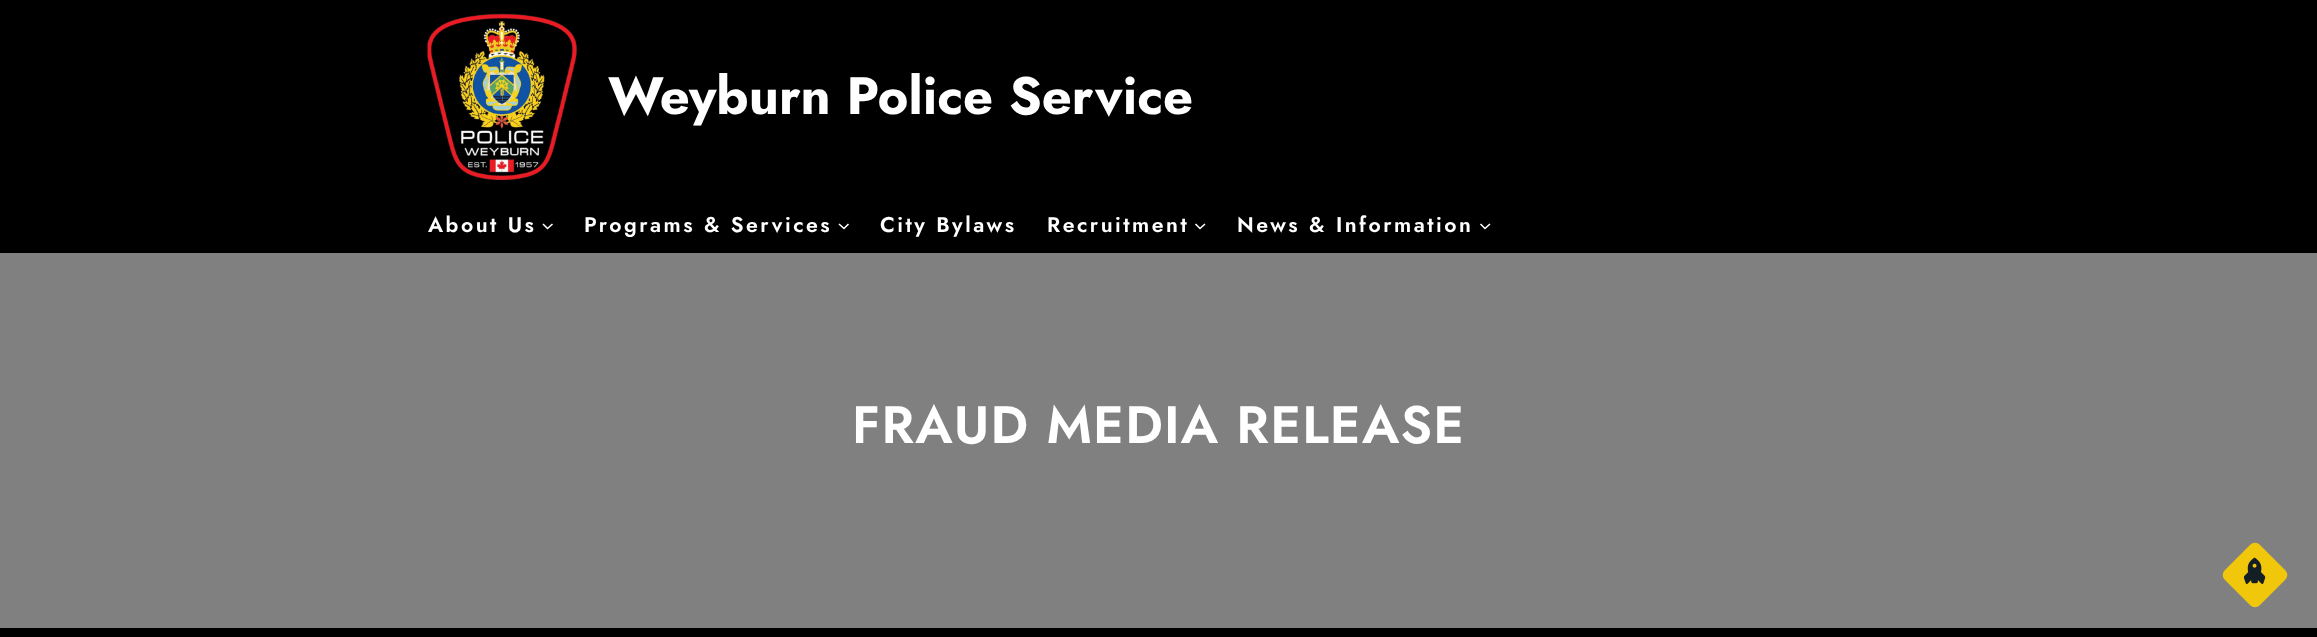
<!DOCTYPE html>
<meta charset="utf-8">
<style>body { margin: 0 } canvas { display: block }</style>
<canvas id="canvas" width="2317" height="637"></canvas>
<img id="img1" src="img_01.png" hidden>
<img id="img2" src="img_02.png" hidden>
<script>
window.onload = function () {
	const canvas = document.getElementById("canvas");
	const ctx = canvas.getContext("2d");
	ctx.miterLimit = 4;
	ctx.fontKerning = "normal";
	function txt(s, x, y) {
		ctx.fillText(s, x, y);
	}
	function fill(x, y, w, h) {
		ctx.fillRect(x, y, w, h);
	}
	function img(id, x, y, w, h) {
		ctx.drawImage(document.getElementById(id), x, y, w, h);
	}

	ctx.fillStyle = "#000000";
	fill(0, 0, 2317, 637);
	img("img1", 427, 13, 151, 167);
	ctx.beginPath();
	ctx.moveTo(543, 224);
	ctx.lineTo(547.5, 228.5);
	ctx.lineTo(552.5, 224);
	ctx.strokeStyle = "#FFFFFF";
	ctx.lineWidth = 1.6;
	ctx.stroke();
	ctx.beginPath();
	ctx.moveTo(839, 224);
	ctx.lineTo(844, 228.5);
	ctx.lineTo(848.5, 224);
	ctx.stroke();
	ctx.beginPath();
	ctx.moveTo(1195.5, 224);
	ctx.lineTo(1200, 228.5);
	ctx.lineTo(1205, 224);
	ctx.stroke();
	ctx.beginPath();
	ctx.moveTo(1480.5, 224);
	ctx.lineTo(1485, 228.5);
	ctx.lineTo(1490, 224);
	ctx.stroke();
	ctx.fillStyle = "#808080";
	fill(0, 253, 2317, 375);
	ctx.fillStyle = "#F0C70A";
	ctx.beginPath();
	ctx.moveTo(2225, 570);
	ctx.lineTo(2250, 545);
	ctx.bezierCurveTo(2253, 542, 2257, 542, 2260, 545);
	ctx.lineTo(2285, 570);
	ctx.bezierCurveTo(2288, 573, 2288, 577, 2285, 580);
	ctx.lineTo(2260, 605);
	ctx.bezierCurveTo(2257, 608, 2253, 608, 2250, 605);
	ctx.lineTo(2225, 580);
	ctx.bezierCurveTo(2222, 577, 2222, 573, 2225, 570);
	ctx.closePath();
	ctx.fill();
	img("img2", 2243, 557, 23, 27);
	ctx.font = "bold 52.5px Jost";
	ctx.fillStyle = "#FFFFFF";
	txt("Weyburn Police Service", 608, 114);
	ctx.letterSpacing = "2.5px";
	ctx.font = "600 21.25px Jost";
	txt("About Us", 428, 232);
	txt("Programs & Services", 584, 232);
	txt("City Bylaws", 880, 232);
	txt("Recruitment", 1047, 232);
	txt("News & Information", 1237, 232);
	ctx.letterSpacing = "1.25px";
	ctx.font = "600 52.5px Jost";
	txt("FRAUD MEDIA RELEASE", 852, 443);
};
</script>
